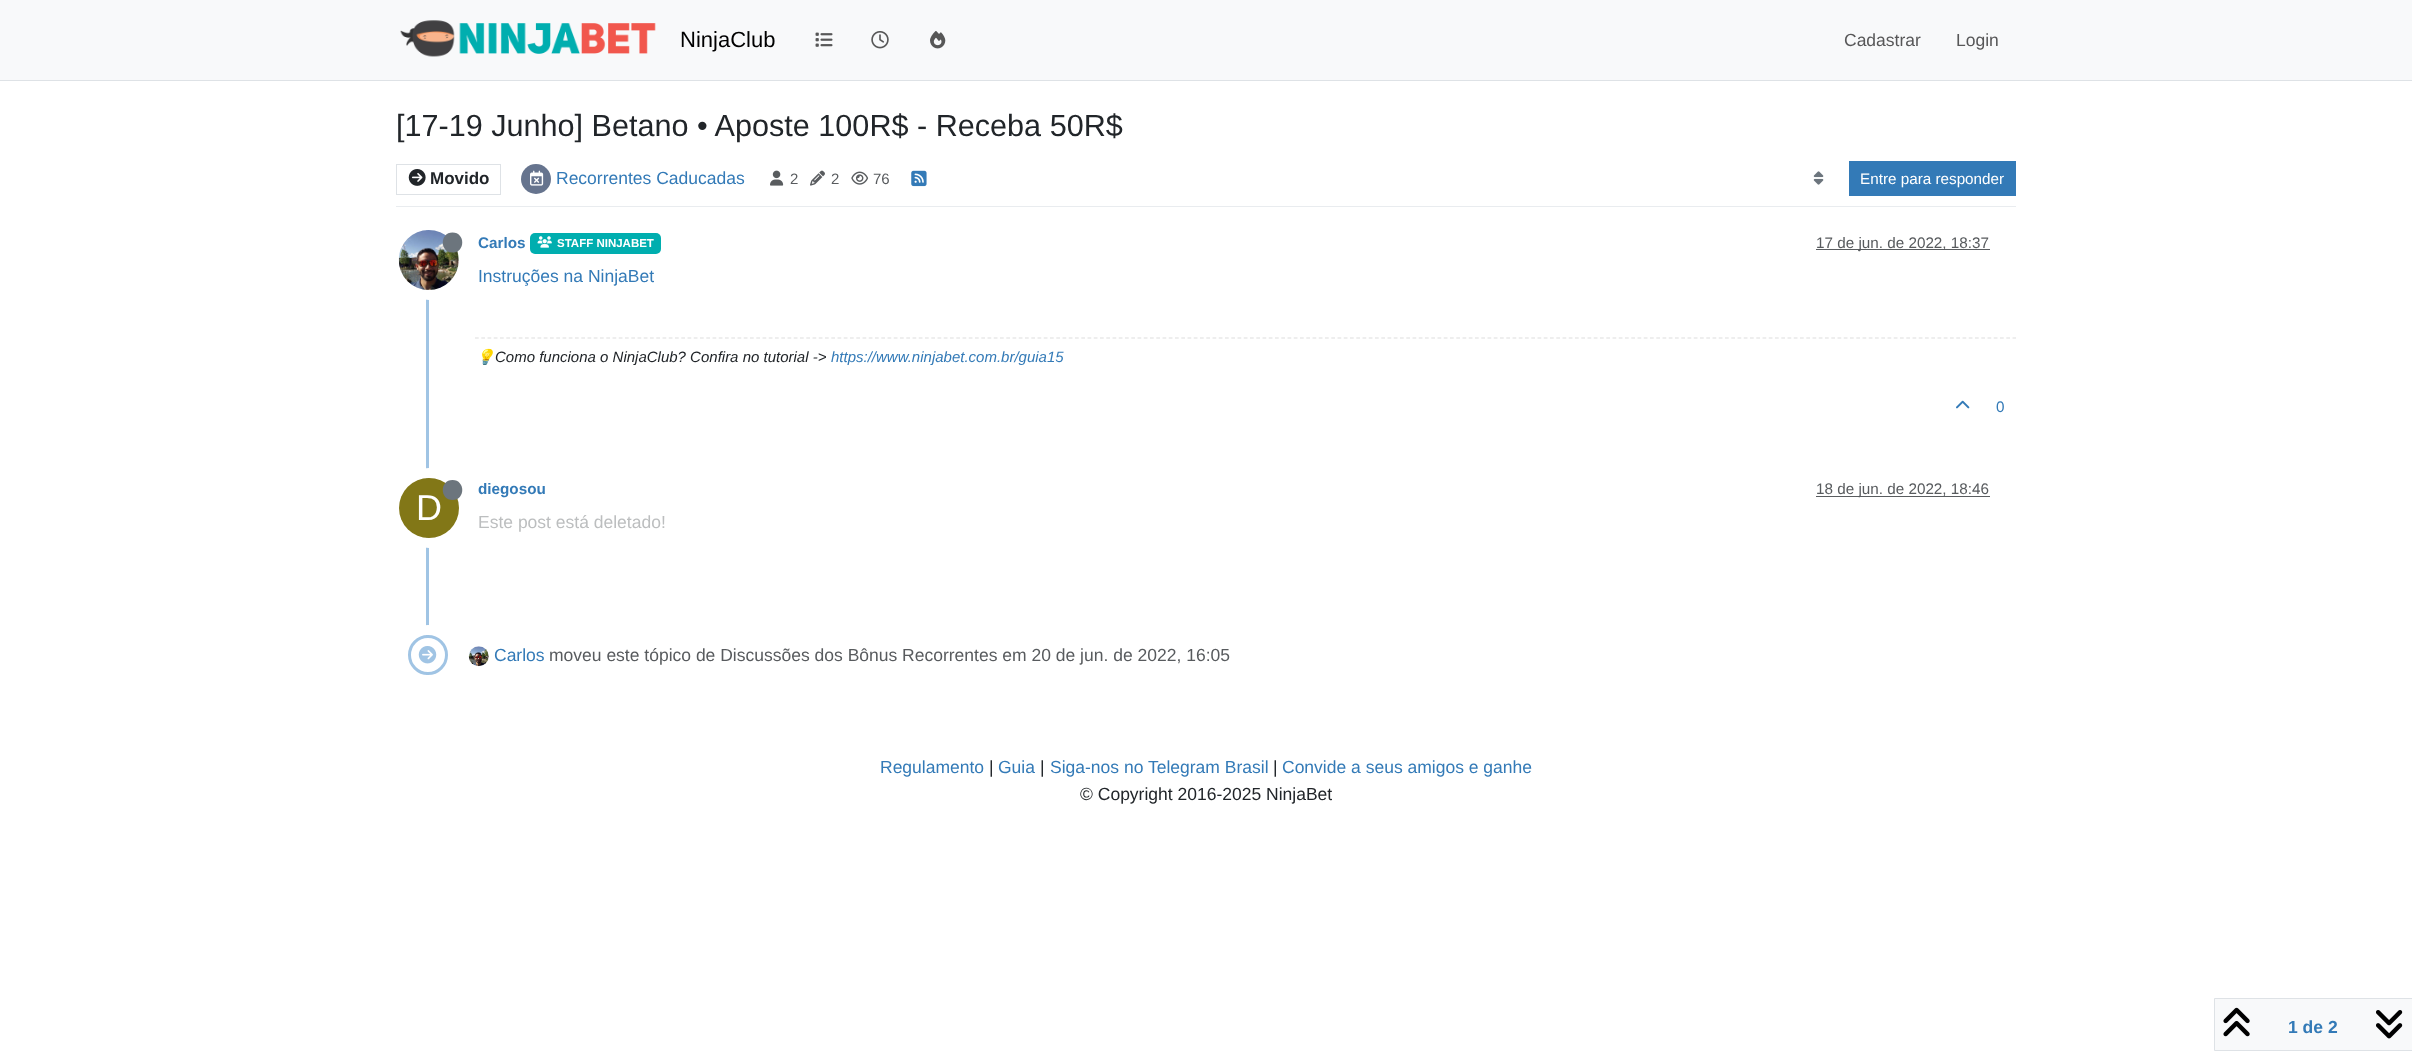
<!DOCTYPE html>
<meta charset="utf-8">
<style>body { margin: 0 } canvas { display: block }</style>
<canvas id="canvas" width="2412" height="1051"></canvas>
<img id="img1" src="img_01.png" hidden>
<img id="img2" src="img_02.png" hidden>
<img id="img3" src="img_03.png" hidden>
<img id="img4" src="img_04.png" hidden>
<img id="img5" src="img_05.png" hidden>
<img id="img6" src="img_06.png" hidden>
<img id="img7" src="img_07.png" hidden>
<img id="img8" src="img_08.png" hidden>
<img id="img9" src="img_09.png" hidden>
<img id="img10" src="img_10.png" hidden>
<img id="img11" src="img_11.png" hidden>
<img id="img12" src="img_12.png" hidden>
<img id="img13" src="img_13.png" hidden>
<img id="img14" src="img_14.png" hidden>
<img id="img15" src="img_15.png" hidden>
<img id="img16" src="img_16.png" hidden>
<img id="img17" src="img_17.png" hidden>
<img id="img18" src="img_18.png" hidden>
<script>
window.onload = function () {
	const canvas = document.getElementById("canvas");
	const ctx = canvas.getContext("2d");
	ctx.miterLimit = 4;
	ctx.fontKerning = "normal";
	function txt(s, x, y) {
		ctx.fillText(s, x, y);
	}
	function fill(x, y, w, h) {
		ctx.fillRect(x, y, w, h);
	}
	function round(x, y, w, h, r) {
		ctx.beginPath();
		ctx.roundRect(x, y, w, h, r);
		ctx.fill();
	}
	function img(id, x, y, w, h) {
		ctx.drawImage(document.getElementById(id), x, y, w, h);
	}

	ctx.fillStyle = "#FFFFFF";
	fill(0, 0, 2412, 1051);
	ctx.fillStyle = "#F8F9FA";
	fill(0, 0, 2412, 80);
	ctx.fillStyle = "#DEE2E6";
	fill(0, 80, 2412, 1);
	img("img1", 400, 20, 256, 37);
	img("img2", 815, 32, 18, 15);
	img("img3", 871, 31, 18, 18);
	img("img4", 930, 31, 16, 18);
	ctx.fillStyle = "#E9ECEF";
	fill(396, 206, 1620, 1);
	ctx.strokeStyle = "#DEE2E6";
	ctx.strokeRect(396.5, 164.5, 104, 30);
	img("img5", 408, 169, 18, 17);
	ctx.fillStyle = "#66748E";
	ctx.beginPath();
	ctx.arc(536, 179, 15, 0, Math.PI * 2);
	ctx.fill();
	img("img6", 530, 170, 14, 16);
	img("img7", 770, 170, 14, 16);
	img("img8", 810, 170, 15, 16);
	img("img9", 851, 171, 18, 14);
	img("img10", 911, 170, 16, 17);
	img("img11", 1813, 171, 11, 14);
	ctx.fillStyle = "#337AB7";
	fill(1849, 161, 167, 35);
	ctx.fillStyle = "#A0C4E4";
	fill(426, 228, 3, 447);
	ctx.beginPath();
	ctx.arc(429, 260, 35, 0, Math.PI * 2);
	ctx.strokeStyle = "#FFFFFF";
	ctx.lineWidth = 10;
	ctx.stroke();
	img("img12", 398, 230, 61, 60);
	ctx.fillStyle = "#6C757D";
	ctx.beginPath();
	ctx.moveTo(452.5, 252.5);
	ctx.bezierCurveTo(465.5, 252.5, 465.5, 232.5, 452.5, 232.5);
	ctx.bezierCurveTo(439.5, 232.5, 439.5, 252.5, 452.5, 252.5);
	ctx.closePath();
	ctx.fill();
	ctx.fillStyle = "#00AEAF";
	round(530, 233, 131, 21, 5);
	img("img13", 537, 236, 15, 12);
	ctx.fillStyle = "#595C5F";
	fill(1816, 249, 174, 1);
	ctx.beginPath();
	ctx.moveTo(475, 338);
	ctx.lineTo(2016, 338);
	ctx.strokeStyle = "#DEDEDE";
	ctx.lineWidth = 1.2;
	ctx.setLineDash([3.75, 2.5]);
	ctx.stroke();
	img("img14", 1956, 400, 14, 9);
	fill(1816, 496, 174, 1);
	ctx.beginPath();
	ctx.arc(429, 508, 35, 0, Math.PI * 2);
	ctx.strokeStyle = "#FFFFFF";
	ctx.lineWidth = 10;
	ctx.setLineDash([]);
	ctx.stroke();
	ctx.fillStyle = "#827717";
	ctx.beginPath();
	ctx.arc(429, 508, 30, 0, Math.PI * 2);
	ctx.fill();
	ctx.fillStyle = "#6C757D";
	ctx.beginPath();
	ctx.moveTo(452.5, 500);
	ctx.bezierCurveTo(465.5, 500, 465.5, 480, 452.5, 480);
	ctx.bezierCurveTo(439.5, 480, 439.5, 500, 452.5, 500);
	ctx.closePath();
	ctx.fill();
	ctx.beginPath();
	ctx.arc(428, 655, 25, 0, Math.PI * 2);
	ctx.stroke();
	ctx.fillStyle = "#FFFFFF";
	ctx.beginPath();
	ctx.arc(428, 655, 18.5, 0, Math.PI * 2);
	ctx.fill();
	ctx.strokeStyle = "#A0C4E4";
	ctx.lineWidth = 3;
	ctx.stroke();
	img("img15", 418, 646, 19, 18);
	img("img16", 468, 646, 21, 21);
	ctx.fillStyle = "#F8F9FA";
	ctx.beginPath();
	ctx.rect(2214.5, 998.5, 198, 52);
	ctx.fill();
	ctx.strokeStyle = "#DEE2E6";
	ctx.lineWidth = 1;
	ctx.stroke();
	img("img17", 2223, 1007, 27, 30);
	img("img18", 2376, 1010, 27, 29);
	ctx.font = "22px Liberation Sans";
	ctx.fillStyle = "#000000";
	txt("NinjaClub", 680, 47);
	ctx.font = "17.5px Liberation Sans";
	ctx.fillStyle = "#575758";
	txt("Cadastrar", 1844, 46);
	txt("Login", 1956, 46);
	ctx.font = "30.6px Liberation Sans";
	ctx.fillStyle = "#212529";
	txt("[17-19 Junho] Betano • Aposte 100R$ - Receba 50R$", 396, 136);
	ctx.font = "bold 17px Liberation Sans";
	txt("Movido", 430, 184);
	ctx.font = "17.5px Liberation Sans";
	ctx.fillStyle = "#337AB7";
	txt("Recorrentes Caducadas", 556, 184);
	ctx.font = "15px Liberation Sans";
	ctx.fillStyle = "#585B5E";
	txt("2", 790, 184);
	txt("2", 831, 184);
	txt("76", 873, 184);
	ctx.font = "15.25px Liberation Sans";
	ctx.fillStyle = "#FFFFFF";
	txt("Entre para responder", 1860, 184);
	ctx.font = "bold 15.25px Liberation Sans";
	ctx.fillStyle = "#337AB7";
	txt("Carlos", 478, 248);
	ctx.font = "bold 11.5px Liberation Sans";
	ctx.fillStyle = "#FFFFFF";
	txt("STAFF NINJABET", 557, 247);
	ctx.font = "15.25px Liberation Sans";
	ctx.fillStyle = "#585B5E";
	txt("17 de jun. de 2022, 18:37", 1816, 248);
	ctx.font = "17.5px Liberation Sans";
	ctx.fillStyle = "#337AB7";
	txt("Instruções na NinjaBet", 478, 282);
	ctx.font = "italic 15px Noto Color Emoji";
	ctx.fillStyle = "#212529";
	txt("💡", 476, 362);
	ctx.font = "italic 15px Liberation Sans";
	txt("Como funciona o NinjaClub? Confira no tutorial ->", 495, 362);
	ctx.fillStyle = "#337AB7";
	txt("https://www.ninjabet.com.br/guia15", 831, 362);
	ctx.font = "15.25px Liberation Sans";
	txt("0", 1996, 412);
	ctx.font = "bold 15.25px Liberation Sans";
	txt("diegosou", 478, 494);
	ctx.font = "15.25px Liberation Sans";
	ctx.fillStyle = "#585B5E";
	txt("18 de jun. de 2022, 18:46", 1816, 494);
	ctx.font = "36px Liberation Sans";
	ctx.fillStyle = "#FFFFFF";
	txt("D", 416, 520);
	ctx.font = "17.5px Liberation Sans";
	ctx.fillStyle = "#BCBEBF";
	txt("Este post está deletado!", 478, 528);
	ctx.fillStyle = "#337AB7";
	txt("Carlos", 494, 661);
	ctx.fillStyle = "#585B5E";
	txt("moveu este tópico de Discussões dos Bônus Recorrentes em 20 de jun. de 2022, 16:05", 549, 661);
	ctx.font = "bold 17.5px Liberation Sans";
	ctx.fillStyle = "#337AB7";
	txt("1 de 2", 2288, 1033);
	ctx.font = "17.5px Liberation Sans";
	txt("Regulamento", 880, 773);
	ctx.fillStyle = "#212529";
	txt("|", 989, 773);
	ctx.fillStyle = "#337AB7";
	txt("Guia", 998, 773);
	ctx.fillStyle = "#212529";
	txt("|", 1040, 773);
	ctx.fillStyle = "#337AB7";
	txt("Siga-nos no Telegram Brasil", 1050, 773);
	ctx.fillStyle = "#212529";
	txt("|", 1273, 773);
	ctx.fillStyle = "#337AB7";
	txt("Convide a seus amigos e ganhe", 1282, 773);
	ctx.fillStyle = "#212529";
	txt("© Copyright 2016-2025 NinjaBet", 1080, 800);
};
</script>
